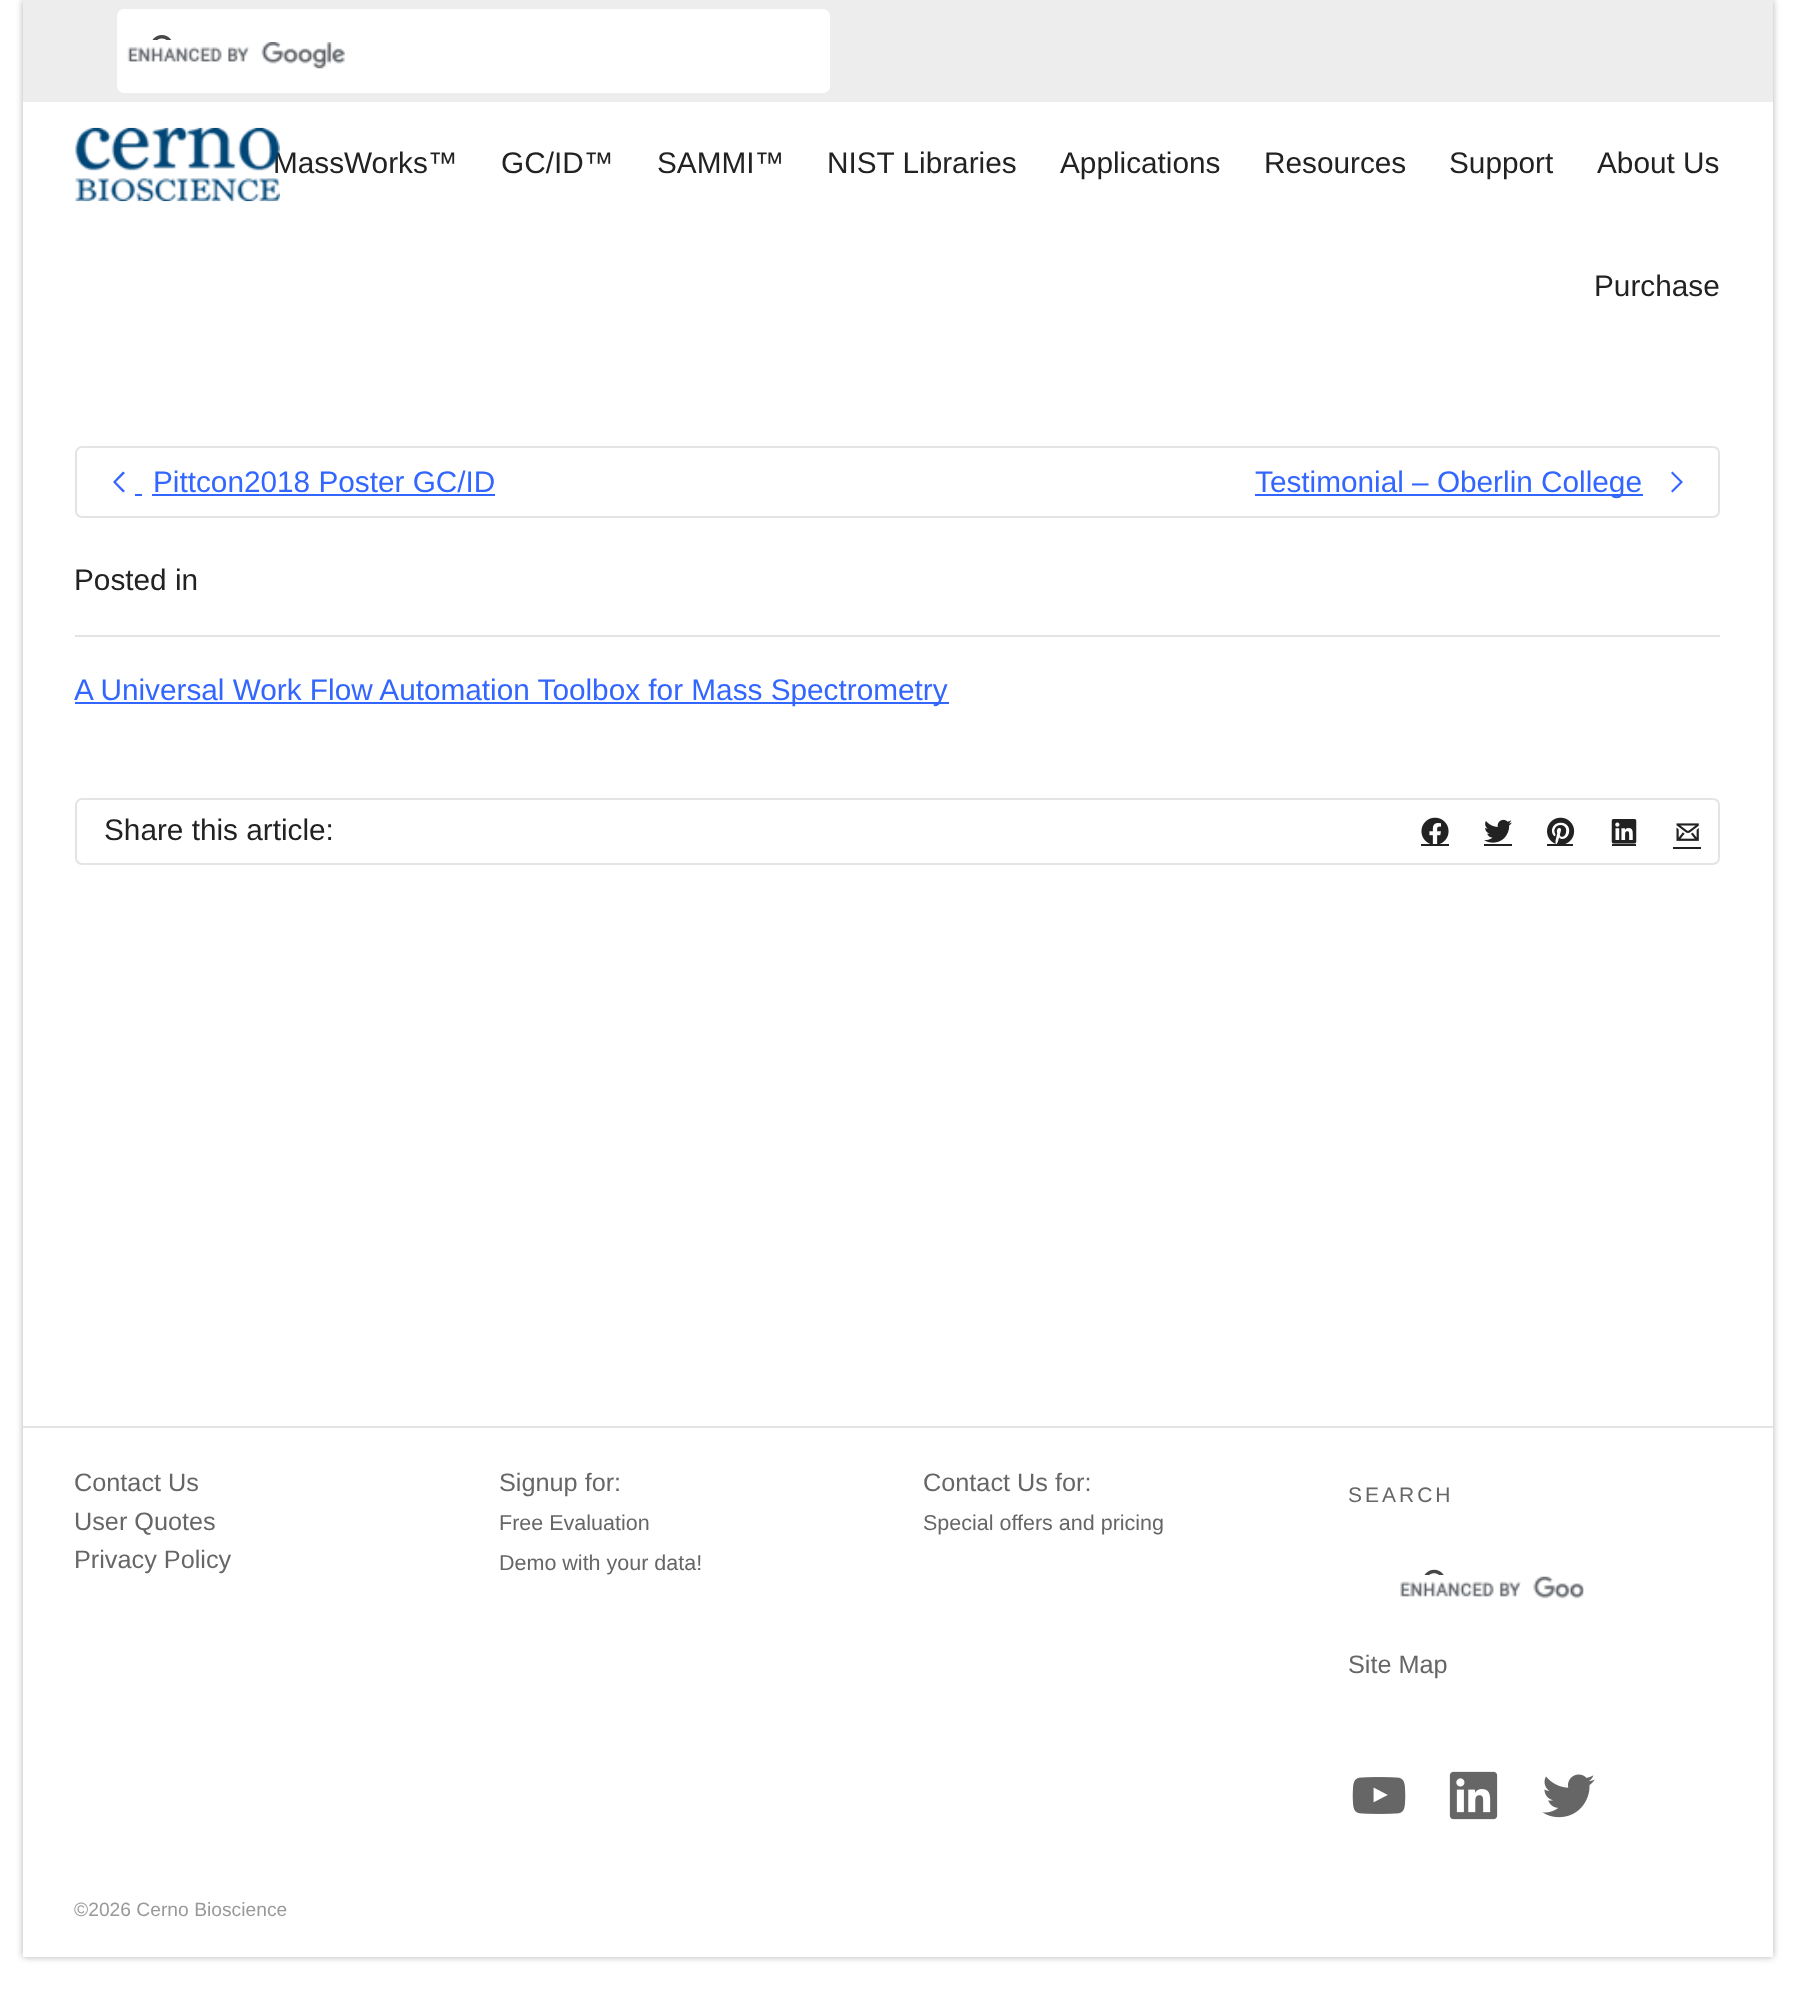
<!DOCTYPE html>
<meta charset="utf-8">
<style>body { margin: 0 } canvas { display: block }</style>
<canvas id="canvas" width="1793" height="2015"></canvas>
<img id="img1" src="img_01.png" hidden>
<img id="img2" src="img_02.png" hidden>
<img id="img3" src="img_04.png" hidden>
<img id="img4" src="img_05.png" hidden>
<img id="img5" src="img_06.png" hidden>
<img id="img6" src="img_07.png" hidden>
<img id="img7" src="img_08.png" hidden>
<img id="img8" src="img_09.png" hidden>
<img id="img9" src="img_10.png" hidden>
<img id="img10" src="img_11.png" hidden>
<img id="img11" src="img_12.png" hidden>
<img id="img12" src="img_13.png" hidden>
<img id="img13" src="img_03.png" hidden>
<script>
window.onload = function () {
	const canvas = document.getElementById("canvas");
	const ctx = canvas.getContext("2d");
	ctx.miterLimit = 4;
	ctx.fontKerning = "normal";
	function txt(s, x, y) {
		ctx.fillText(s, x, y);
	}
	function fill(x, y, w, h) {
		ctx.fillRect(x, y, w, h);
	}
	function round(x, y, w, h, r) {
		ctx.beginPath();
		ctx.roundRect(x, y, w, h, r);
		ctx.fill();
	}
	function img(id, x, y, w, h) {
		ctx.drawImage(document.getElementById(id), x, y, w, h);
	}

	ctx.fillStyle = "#FFFFFF";
	fill(0, 0, 1793, 2015);
	ctx.fillStyle = "rgba(0, 0, 0, 0.3)";
	ctx.filter = "blur(3.5px)";
	ctx.beginPath();
	ctx.rect(23, 0, 1750, 1957);
	ctx.fill();
	ctx.filter = "none";
	ctx.fillStyle = "#FFFFFF";
	fill(23, 102, 1750, 1855);
	ctx.fillStyle = "#EDEDED";
	fill(23, 0, 1750, 102);
	ctx.fillStyle = "#FFFFFF";
	round(117, 9, 713, 84, 7);
	img("img1", 152, 35, 20, 5);
	img("img2", 127, 42, 218, 27);
	ctx.beginPath();
	ctx.roundRect(76, 447, 1643, 70, 6);
	ctx.strokeStyle = "#E4E4E4";
	ctx.lineWidth = 2;
	ctx.stroke();
	ctx.fillStyle = "#3366FF";
	ctx.beginPath();
	ctx.moveTo(123, 492.5);
	ctx.lineTo(113, 482);
	ctx.lineTo(123, 471.5);
	ctx.lineTo(125, 473);
	ctx.lineTo(116, 482);
	ctx.lineTo(125, 491);
	ctx.closePath();
	ctx.fill();
	fill(152, 494, 343, 2);
	fill(135, 494, 7, 2);
	fill(1255, 494, 388, 2);
	ctx.beginPath();
	ctx.moveTo(1672.5, 492.5);
	ctx.lineTo(1671, 491);
	ctx.lineTo(1680, 482);
	ctx.lineTo(1671, 473);
	ctx.lineTo(1672.5, 471.5);
	ctx.lineTo(1683, 482);
	ctx.closePath();
	ctx.fill();
	ctx.fillStyle = "#E4E4E4";
	fill(75, 635, 1645, 2);
	ctx.fillStyle = "#3366FF";
	fill(75, 702, 874, 2);
	ctx.beginPath();
	ctx.roundRect(76, 799, 1643, 65, 6);
	ctx.stroke();
	img("img3", 1421, 817, 28, 27);
	ctx.fillStyle = "#222222";
	fill(1421, 844, 28, 2);
	img("img4", 1484, 819, 28, 24);
	fill(1484, 844, 28, 2);
	img("img5", 1547, 817, 28, 27);
	fill(1547, 844, 26, 2);
	img("img6", 1611, 819, 26, 25);
	fill(1612, 844, 24, 2);
	img("img7", 1676, 823, 23, 18);
	fill(1673, 847, 28, 2);
	ctx.fillStyle = "#E4E4E4";
	fill(23, 1426, 1750, 2);
	img("img8", 1424, 1569, 20, 6);
	img("img9", 1400, 1576, 184, 23);
	img("img10", 1352, 1777, 54, 37);
	img("img11", 1449, 1771, 49, 49);
	img("img12", 1542, 1774, 53, 44);
	ctx.font = "29.75px Liberation Sans";
	ctx.fillStyle = "#222222";
	txt("MassWorks™", 273, 173);
	img("img13", 75, 127, 205, 75);
	txt("GC/ID™", 501, 173);
	txt("SAMMI™", 657, 173);
	txt("NIST Libraries", 827, 173);
	txt("Applications", 1060, 173);
	txt("Resources", 1264, 173);
	txt("Support", 1449, 173);
	txt("About Us", 1597, 173);
	txt("Purchase", 1594, 296);
	ctx.fillStyle = "#3366FF";
	txt("Pittcon2018 Poster GC/ID", 153, 492);
	txt("Testimonial – Oberlin College", 1255, 492);
	ctx.fillStyle = "#222222";
	txt("Posted in", 74, 590);
	ctx.fillStyle = "#3366FF";
	txt("A Universal Work Flow Automation Toolbox for Mass Spectrometry", 74, 700);
	ctx.fillStyle = "#222222";
	txt("Share this article:", 104, 840);
	ctx.font = "25.25px Liberation Sans";
	ctx.fillStyle = "#666666";
	txt("Contact Us", 74, 1491);
	txt("User Quotes", 74, 1530);
	txt("Privacy Policy", 74, 1568);
	txt("Signup for:", 499, 1491);
	ctx.font = "21.5px Liberation Sans";
	txt("Free Evaluation", 499, 1530);
	txt("Demo with your data!", 499, 1570);
	ctx.font = "25.25px Liberation Sans";
	txt("Contact Us for:", 923, 1491);
	ctx.font = "21.5px Liberation Sans";
	txt("Special offers and pricing", 923, 1530);
	ctx.letterSpacing = "3px";
	ctx.font = "21px Liberation Sans";
	txt("SEARCH", 1348, 1502);
	ctx.letterSpacing = "0px";
	ctx.font = "25.25px Liberation Sans";
	txt("Site Map", 1348, 1673);
	ctx.font = "19.25px Liberation Sans";
	ctx.fillStyle = "#999999";
	txt("©2026 Cerno Bioscience", 74, 1916);
};
</script>
